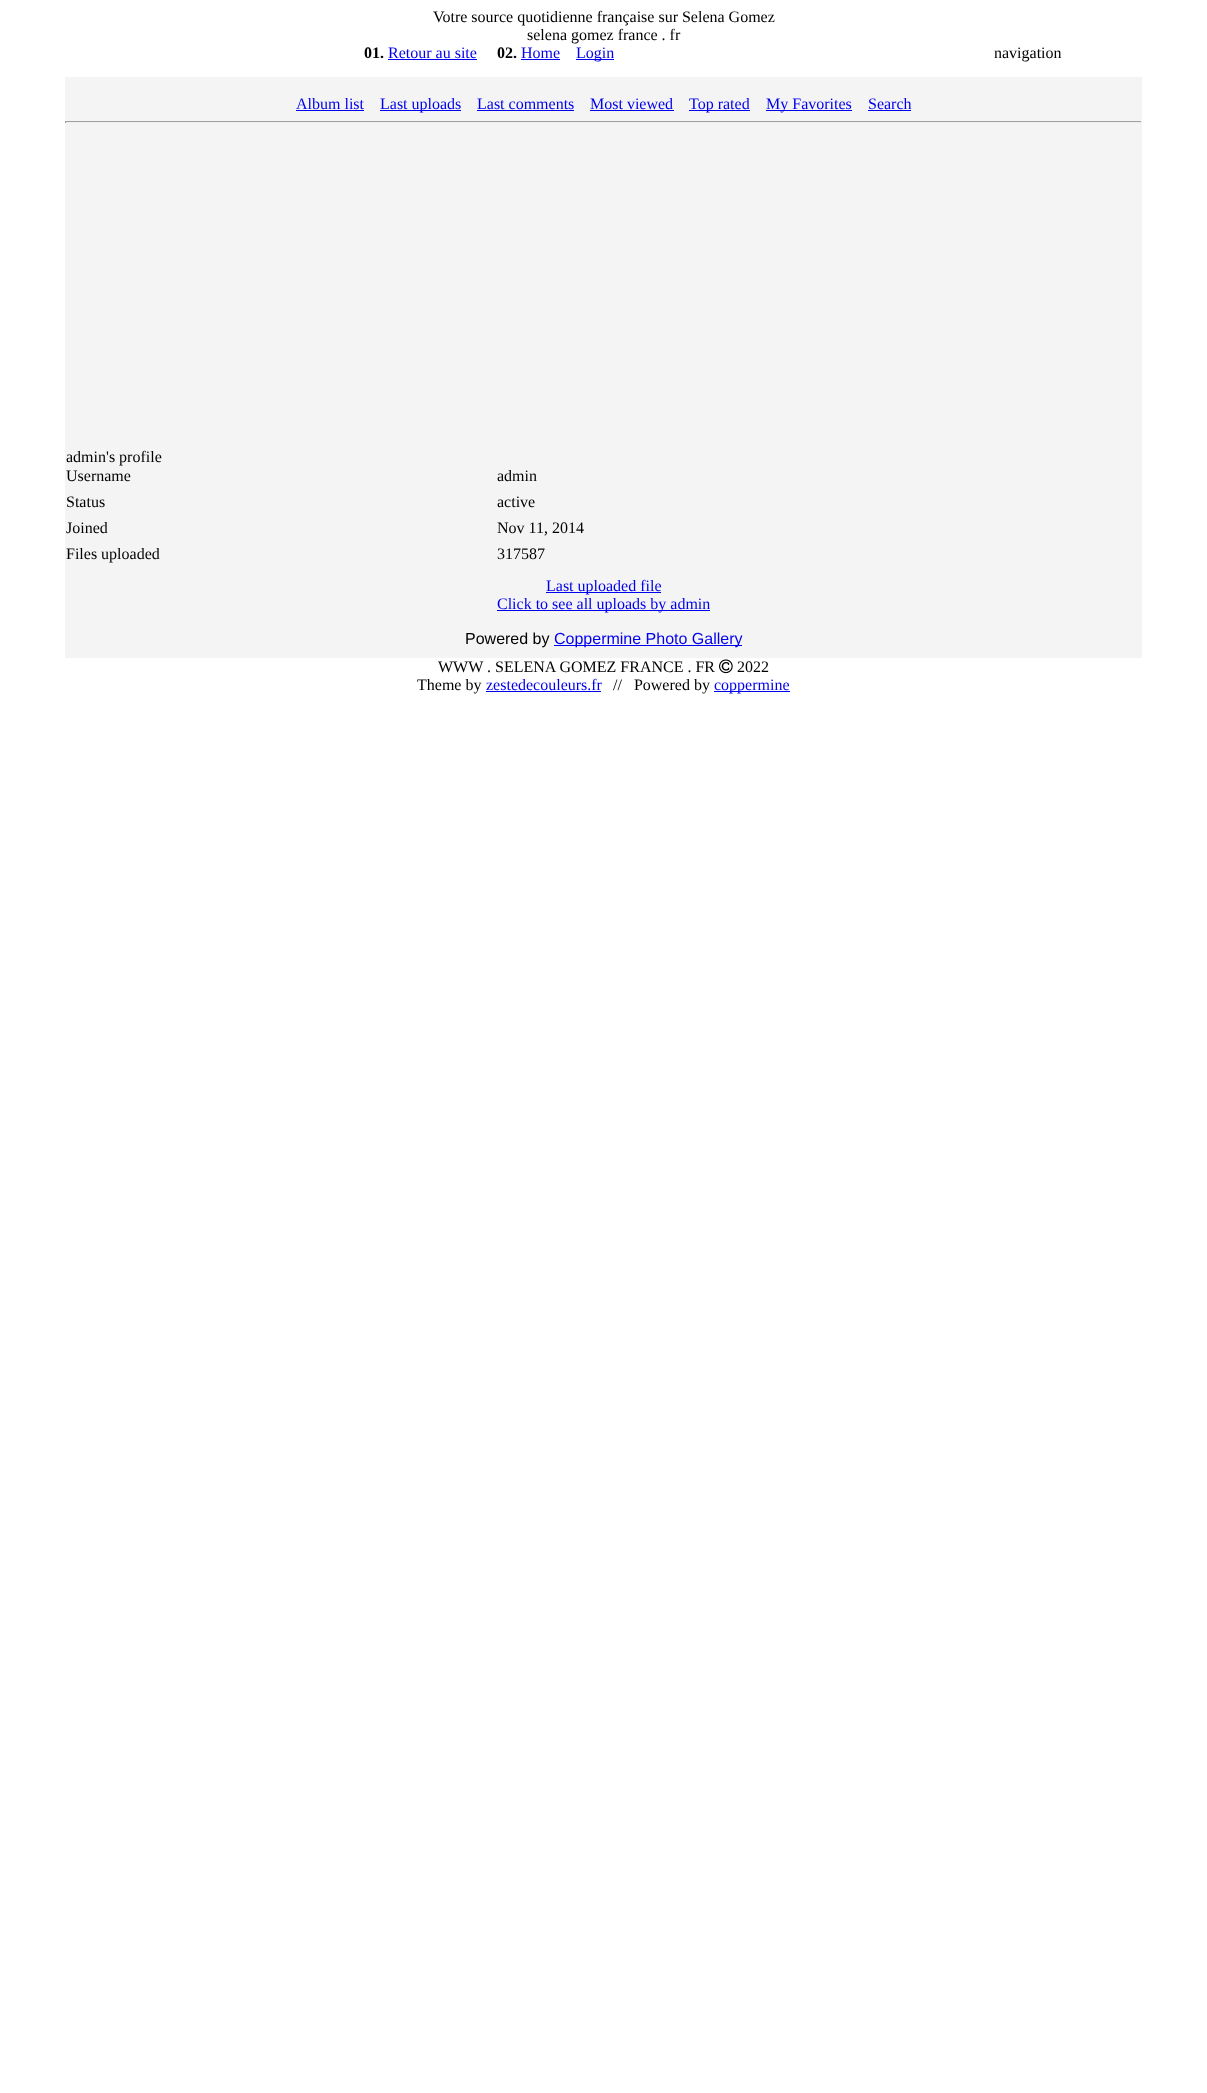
<!DOCTYPE html>
<meta charset="utf-8">
<style>body { margin: 0 } canvas { display: block }</style>
<canvas id="canvas" width="1207" height="2093"></canvas>
<img id="img1" src="img_01.png" hidden>
<script>
window.onload = function () {
	const canvas = document.getElementById("canvas");
	const ctx = canvas.getContext("2d");
	ctx.miterLimit = 4;
	ctx.fontKerning = "normal";
	function txt(s, x, y) {
		ctx.fillText(s, x, y);
	}
	function fill(x, y, w, h) {
		ctx.fillRect(x, y, w, h);
	}
	function img(id, x, y, w, h) {
		ctx.drawImage(document.getElementById(id), x, y, w, h);
	}

	ctx.fillStyle = "#FFFFFF";
	fill(0, 0, 1207, 2093);
	ctx.fillStyle = "#0000EE";
	fill(388, 59, 89, 1);
	fill(521, 59, 39, 1);
	fill(576, 59, 38, 1);
	ctx.fillStyle = "#F4F4F4";
	fill(65, 77, 1077, 581);
	ctx.fillStyle = "#0000EE";
	fill(296, 110, 68, 1);
	fill(380, 110, 81, 1);
	fill(477, 110, 97, 1);
	fill(590, 110, 84, 1);
	fill(689, 110, 61, 1);
	fill(766, 110, 86, 1);
	fill(868, 110, 43, 1);
	ctx.fillStyle = "#9F9F9F";
	fill(65, 121, 1077, 1);
	ctx.fillStyle = "#EEEEEE";
	fill(1141, 121, 1, 2);
	fill(65, 122, 1077, 1);
	ctx.fillStyle = "#9F9F9F";
	fill(65, 121, 1, 2);
	ctx.fillStyle = "#0000EE";
	fill(546, 592, 115, 1);
	fill(497, 610, 213, 1);
	fill(554, 645, 188, 1);
	img("img1", 719, 659, 14, 15);
	fill(486, 691, 115, 1);
	fill(714, 691, 76, 1);
	ctx.font = "16px Liberation Serif";
	ctx.fillStyle = "#000000";
	txt("Votre source quotidienne française sur Selena Gomez", 433, 22);
	txt("selena gomez france . fr", 527, 40);
	ctx.font = "bold 16px Liberation Serif";
	txt("01.", 364, 58);
	ctx.font = "16px Liberation Serif";
	ctx.fillStyle = "#0000EE";
	txt("Retour au site", 388, 58);
	ctx.font = "bold 16px Liberation Serif";
	ctx.fillStyle = "#000000";
	txt("02.", 497, 58);
	ctx.font = "16px Liberation Serif";
	ctx.fillStyle = "#0000EE";
	txt("Home", 521, 58);
	txt("Login", 576, 58);
	ctx.fillStyle = "#000000";
	txt("navigation", 994, 58);
	ctx.fillStyle = "#0000EE";
	txt("Album list", 296, 109);
	txt("Last uploads", 380, 109);
	txt("Last comments", 477, 109);
	txt("Most viewed", 590, 109);
	txt("Top rated", 689, 109);
	txt("My Favorites", 766, 109);
	txt("Search", 868, 109);
	ctx.fillStyle = "#000000";
	txt("admin's profile", 66, 462);
	txt("Username", 66, 481);
	txt("admin", 497, 481);
	txt("Status", 66, 507);
	txt("active", 497, 507);
	txt("Joined", 66, 533);
	txt("Nov 11, 2014", 497, 533);
	txt("Files uploaded", 66, 559);
	txt("317587", 497, 559);
	ctx.fillStyle = "#0000EE";
	txt("Last uploaded file", 546, 591);
	txt("Click to see all uploads by admin", 497, 609);
	ctx.font = "16px Liberation Sans";
	ctx.fillStyle = "#000000";
	txt("Powered by", 465, 644);
	ctx.fillStyle = "#0000EE";
	txt("Coppermine Photo Gallery", 554, 644);
	ctx.font = "16px Liberation Serif";
	ctx.fillStyle = "#000000";
	txt("WWW . SELENA GOMEZ FRANCE . FR", 438, 672);
	txt("2022", 737, 672);
	txt("Theme by", 417, 690);
	ctx.fillStyle = "#0000EE";
	txt("zestedecouleurs.fr", 486, 690);
	ctx.fillStyle = "#000000";
	txt("//   Powered by", 613, 690);
	ctx.fillStyle = "#0000EE";
	txt("coppermine", 714, 690);
};
</script>
